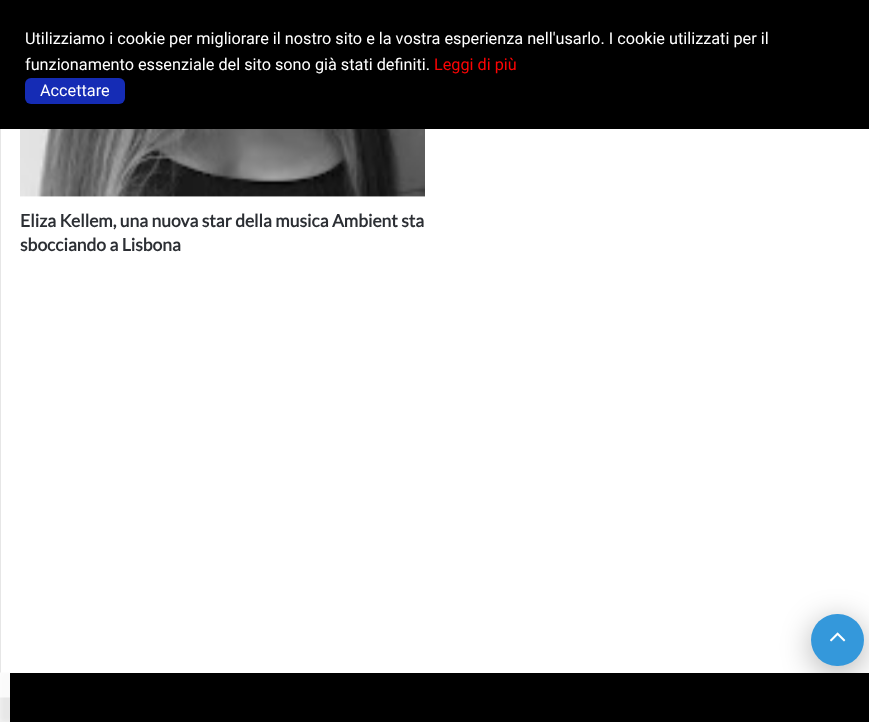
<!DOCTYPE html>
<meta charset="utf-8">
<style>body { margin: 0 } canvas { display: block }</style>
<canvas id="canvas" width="869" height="722"></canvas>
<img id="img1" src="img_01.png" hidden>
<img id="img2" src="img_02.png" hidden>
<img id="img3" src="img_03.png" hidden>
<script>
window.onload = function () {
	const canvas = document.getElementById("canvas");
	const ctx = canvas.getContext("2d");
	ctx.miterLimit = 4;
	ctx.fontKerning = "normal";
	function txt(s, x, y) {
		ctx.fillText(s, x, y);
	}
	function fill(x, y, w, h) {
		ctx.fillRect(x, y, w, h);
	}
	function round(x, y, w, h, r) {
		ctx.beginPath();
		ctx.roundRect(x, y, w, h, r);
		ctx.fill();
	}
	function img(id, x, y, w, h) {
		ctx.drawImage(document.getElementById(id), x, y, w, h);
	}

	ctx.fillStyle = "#FFFFFF";
	fill(0, 0, 869, 722);
	ctx.strokeStyle = "#E6E6E6";
	ctx.strokeRect(0.5, -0.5, 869, 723);
	ctx.fillStyle = "#000000";
	fill(0, 0, 869, 129);
	ctx.fillStyle = "#152CB5";
	round(25, 78, 100, 26, 6);
	img("img1", 20, 129, 405, 68);
	ctx.fillStyle = "rgba(0, 0, 0, 0.3)";
	ctx.filter = "blur(15.5px)";
	ctx.beginPath();
	ctx.roundRect(811, 620, 53, 53, 26.5);
	ctx.fill();
	ctx.filter = "none";
	ctx.fillStyle = "#3498DB";
	round(811, 614, 53, 52, 26);
	img("img2", 830, 632, 16, 10);
	img("img3", 0, 672, 10, 50);
	ctx.fillStyle = "#000000";
	fill(10, 673, 859, 49);
	ctx.font = "16.25px Roboto";
	ctx.fillStyle = "#FFFFFF";
	txt("Utilizziamo i cookie per migliorare il nostro sito e la vostra esperienza nell'usarlo. I cookie utilizzati per il", 25, 44);
	txt("funzionamento essenziale del sito sono già stati definiti.", 25, 70);
	ctx.fillStyle = "#FC0404";
	txt("Leggi di più", 434, 70);
	ctx.fillStyle = "#FFFFFF";
	txt("Accettare", 40, 96);
	ctx.font = "bold 17.5px Lato";
	ctx.fillStyle = "#2C2F34";
	txt("Eliza Kellem, una nuova star della musica Ambient sta", 20, 227);
	txt("sbocciando a Lisbona", 20, 251);
};
</script>
